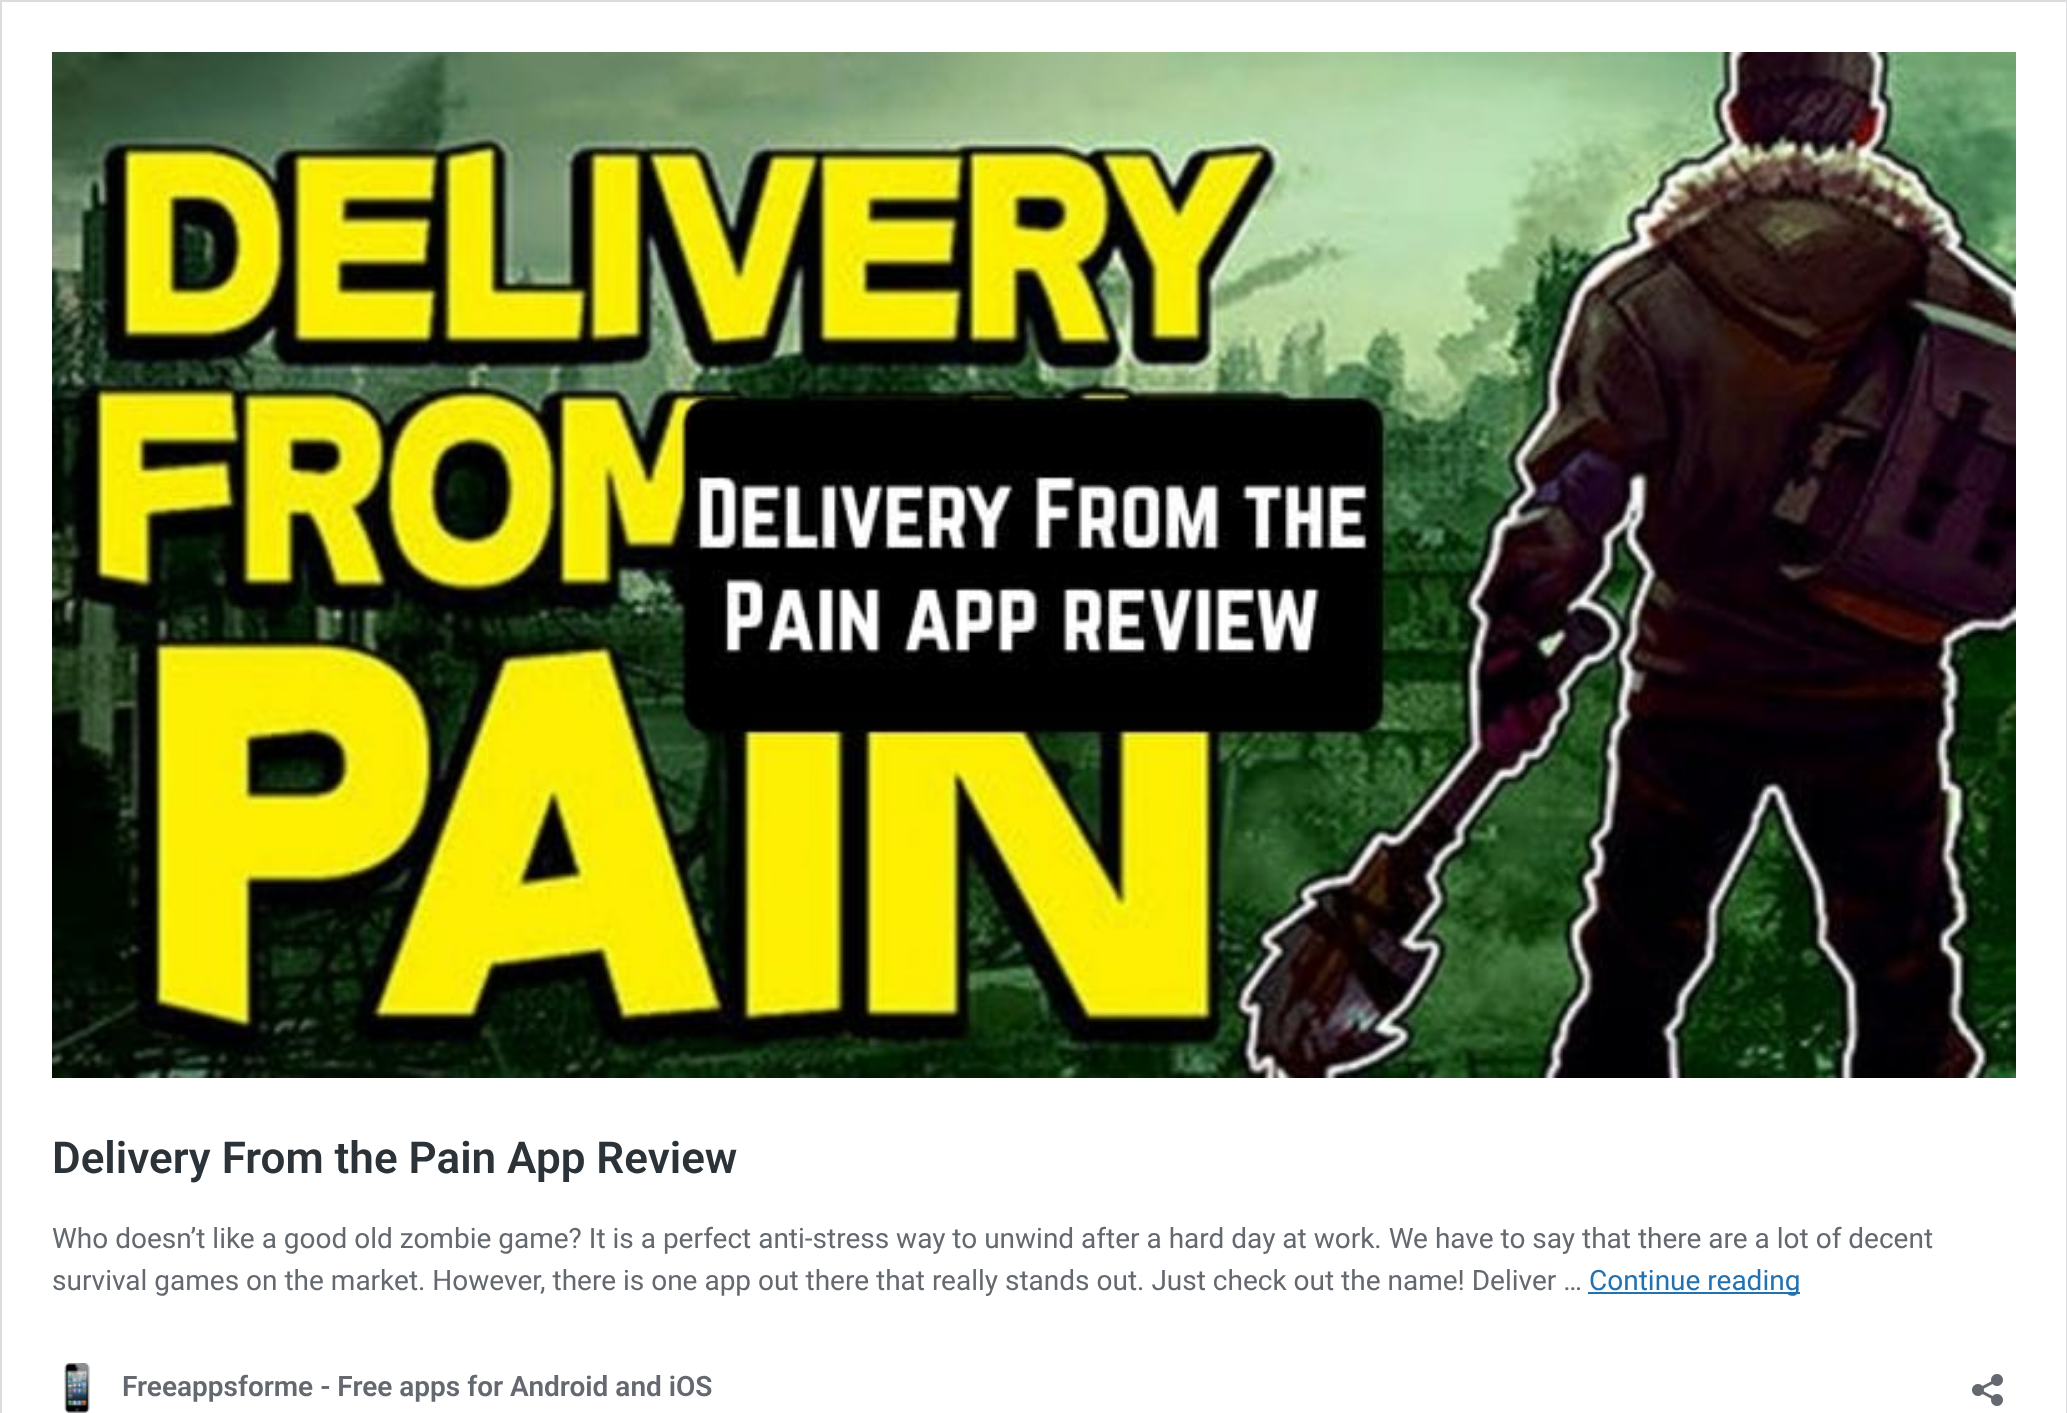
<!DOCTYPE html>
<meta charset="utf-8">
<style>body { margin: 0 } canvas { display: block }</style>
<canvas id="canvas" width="2067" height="1413"></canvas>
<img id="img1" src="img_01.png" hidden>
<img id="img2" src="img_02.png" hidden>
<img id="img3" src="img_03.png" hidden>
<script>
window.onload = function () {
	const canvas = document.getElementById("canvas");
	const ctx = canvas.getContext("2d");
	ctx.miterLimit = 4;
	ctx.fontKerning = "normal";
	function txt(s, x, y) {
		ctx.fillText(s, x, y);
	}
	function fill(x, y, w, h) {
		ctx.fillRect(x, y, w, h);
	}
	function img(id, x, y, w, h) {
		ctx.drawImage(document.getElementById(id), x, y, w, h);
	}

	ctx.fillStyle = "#FFFFFF";
	fill(0, 0, 2067, 1413);
	ctx.strokeStyle = "#DCDCDE";
	ctx.lineWidth = 2;
	ctx.strokeRect(1, 1, 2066, 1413);
	img("img1", 52, 52, 1964, 1026);
	ctx.fillStyle = "#2271B1";
	fill(1588, 1292, 212, 2);
	img("img2", 64, 1363, 26, 50);
	img("img3", 1972, 1374, 31, 32);
	ctx.font = "600 44px Roboto";
	ctx.fillStyle = "#2C3338";
	txt("Delivery From the Pain App Review", 52, 1173);
	ctx.font = "28px Roboto";
	ctx.fillStyle = "#646970";
	txt("Who doesn’t like a good old zombie game? It is a perfect anti-stress way to unwind after a hard day at work. We have to say that there are a lot of decent", 52, 1248);
	txt("survival games on the market. However, there is one app out there that really stands out. Just check out the name! Deliver …", 52, 1290);
	ctx.fillStyle = "#2271B1";
	txt("Continue reading", 1589, 1290);
	ctx.font = "600 28px Roboto";
	ctx.fillStyle = "#646970";
	txt("Freeappsforme - Free apps for Android and iOS", 122, 1396);
};
</script>
